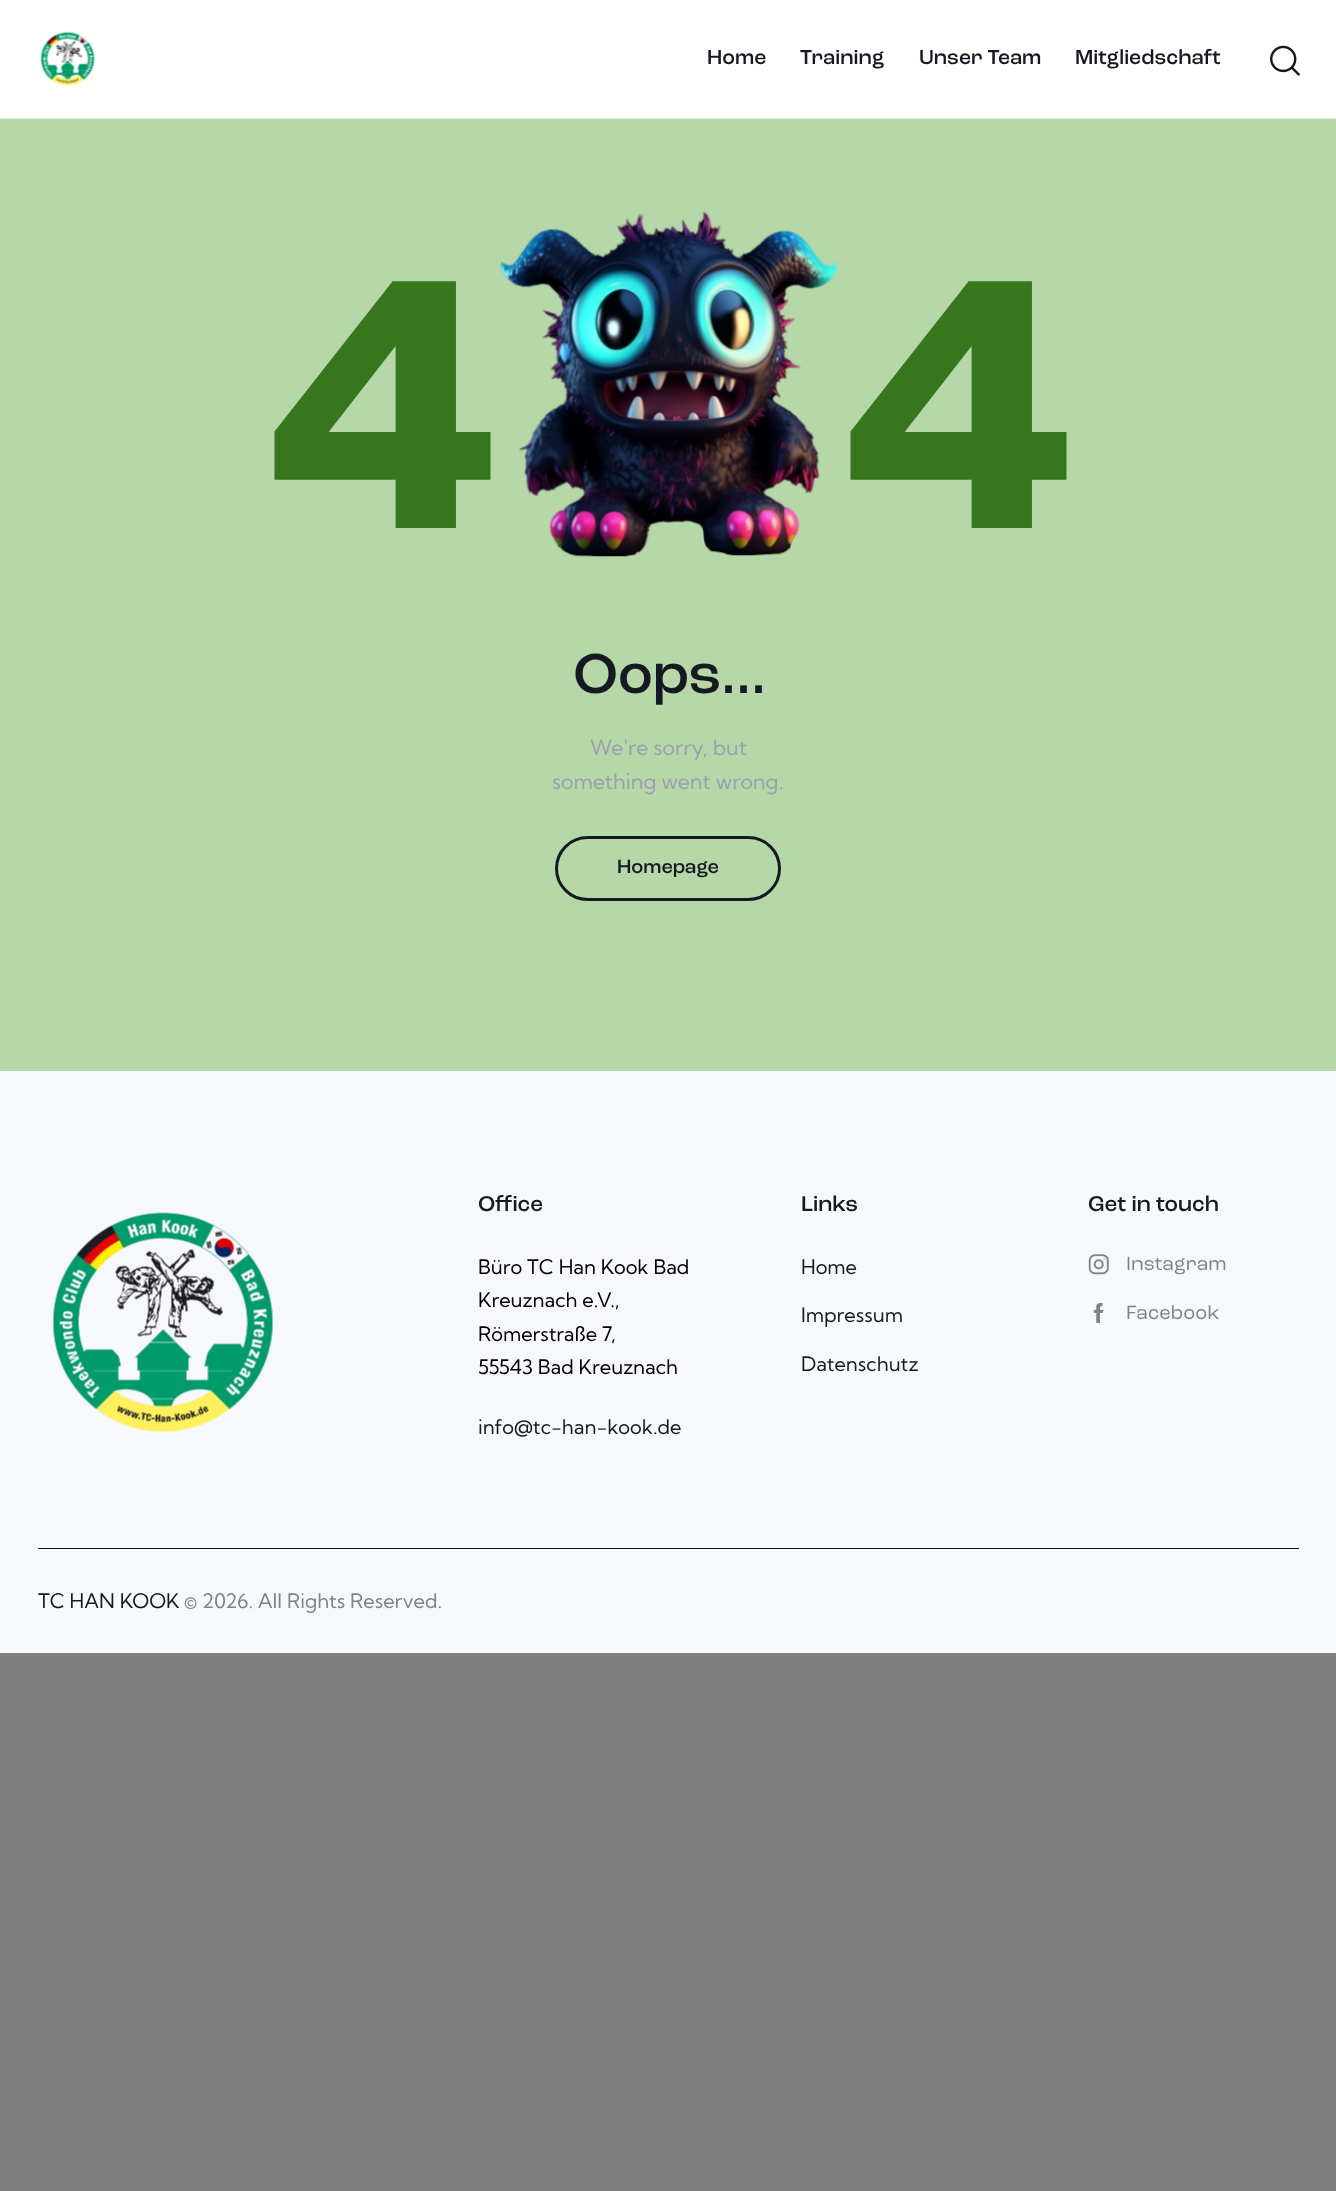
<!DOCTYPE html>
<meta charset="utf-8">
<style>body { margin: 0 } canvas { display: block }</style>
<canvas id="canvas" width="1336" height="2191"></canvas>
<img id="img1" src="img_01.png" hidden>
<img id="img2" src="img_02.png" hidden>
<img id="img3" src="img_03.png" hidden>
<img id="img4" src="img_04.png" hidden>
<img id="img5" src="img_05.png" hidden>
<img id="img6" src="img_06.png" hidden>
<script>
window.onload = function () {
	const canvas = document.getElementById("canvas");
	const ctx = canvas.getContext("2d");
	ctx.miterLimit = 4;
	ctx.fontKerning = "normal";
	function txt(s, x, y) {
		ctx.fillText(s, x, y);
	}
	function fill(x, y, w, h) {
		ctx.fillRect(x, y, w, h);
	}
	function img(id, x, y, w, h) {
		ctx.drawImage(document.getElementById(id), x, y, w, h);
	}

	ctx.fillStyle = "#7F7F7F";
	fill(0, 0, 1336, 2191);
	ctx.fillStyle = "#FFFFFF";
	fill(0, 0, 1336, 118);
	ctx.fillStyle = "#DBE7EF";
	fill(0, 118, 1336, 1);
	img("img1", 40, 31, 56, 55);
	img("img2", 1270, 45, 30, 31);
	ctx.fillStyle = "#B6D7A8";
	fill(0, 119, 1336, 952);
	img("img3", 500, 211, 338, 346);
	ctx.beginPath();
	ctx.roundRect(556.5, 837.5, 223, 62, 31);
	ctx.strokeStyle = "#161921";
	ctx.lineWidth = 3;
	ctx.stroke();
	ctx.fillStyle = "#F6F8FB";
	fill(0, 1071, 1336, 582);
	img("img4", 52, 1212, 221, 220);
	img("img5", 1088, 1254, 21, 21);
	img("img6", 1093, 1303, 11, 20);
	ctx.fillStyle = "#0C0D0E";
	fill(38, 1548, 1261, 1);
	ctx.font = "500 21.25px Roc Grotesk";
	ctx.fillStyle = "#161921";
	txt("Home", 707, 64);
	txt("Training", 800, 64);
	txt("Unser Team", 919, 64);
	txt("Mitgliedschaft", 1075, 64);
	ctx.font = "bold 375px Roc Grotesk";
	ctx.fillStyle = "#38761D";
	txt("4", 267, 528);
	txt("4", 843, 528);
	ctx.letterSpacing = "-0.5px";
	ctx.font = "500 59px Roc Grotesk";
	ctx.fillStyle = "#161921";
	txt("Oops...", 573, 693);
	ctx.letterSpacing = "0px";
	ctx.font = "21.25px Kumbh Sans";
	ctx.fillStyle = "#9B9FAF";
	txt("We're sorry, but", 590, 755);
	txt("something went wrong.", 552, 789);
	ctx.font = "500 20px Roc Grotesk";
	ctx.fillStyle = "#161921";
	txt("Homepage", 617, 873);
	ctx.font = "500 22.5px Roc Grotesk";
	txt("Office", 478, 1211);
	ctx.font = "20px Kumbh Sans";
	ctx.fillStyle = "#000000";
	txt("Büro TC Han Kook Bad", 478, 1274);
	txt("Kreuznach e.V.,", 478, 1307);
	txt("Römerstraße 7,", 478, 1341);
	txt("55543 Bad Kreuznach", 478, 1374);
	ctx.fillStyle = "#161921";
	txt("info@tc-han-kook.de", 478, 1434);
	ctx.font = "500 22.5px Roc Grotesk";
	txt("Links", 801, 1211);
	ctx.font = "20px Kumbh Sans";
	txt("Home", 801, 1274);
	txt("Impressum", 801, 1322);
	txt("Datenschutz", 801, 1371);
	ctx.font = "500 22.5px Roc Grotesk";
	txt("Get in touch", 1088, 1211);
	ctx.font = "20px Roc Grotesk";
	ctx.fillStyle = "#79858B";
	txt("Instagram", 1126, 1270);
	txt("Facebook", 1126, 1319);
	ctx.font = "20px Kumbh Sans";
	ctx.fillStyle = "#161921";
	txt("TC HAN KOOK", 38, 1608);
	ctx.fillStyle = "#79858B";
	txt("© 2026. All Rights Reserved.", 184, 1608);
};
</script>
